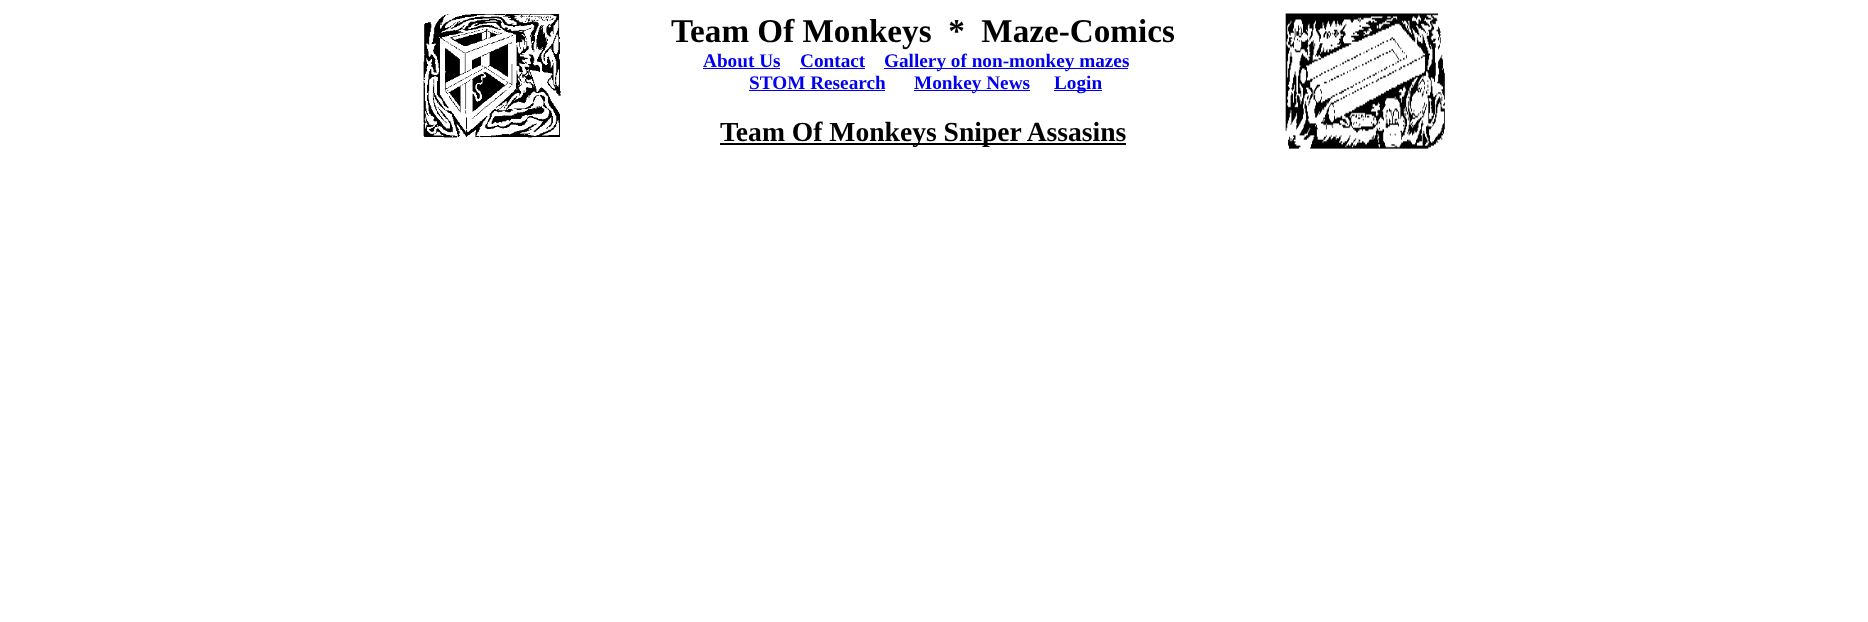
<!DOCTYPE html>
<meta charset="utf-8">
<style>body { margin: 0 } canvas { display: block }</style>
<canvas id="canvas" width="1868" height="622"></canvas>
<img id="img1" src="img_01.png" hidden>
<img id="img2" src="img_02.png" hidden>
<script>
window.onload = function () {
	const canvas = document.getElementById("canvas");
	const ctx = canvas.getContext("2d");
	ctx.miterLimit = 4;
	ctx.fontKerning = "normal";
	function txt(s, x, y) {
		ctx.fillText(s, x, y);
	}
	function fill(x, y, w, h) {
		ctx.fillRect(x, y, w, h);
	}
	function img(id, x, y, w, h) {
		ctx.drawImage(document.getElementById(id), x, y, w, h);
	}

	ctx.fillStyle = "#FFFFFF";
	fill(0, 0, 1868, 622);
	img("img1", 423, 14, 138, 124);
	ctx.fillStyle = "#0000EE";
	fill(703, 68, 77, 1);
	fill(800, 68, 65, 1);
	fill(884, 68, 244, 1);
	fill(749, 90, 136, 1);
	fill(914, 90, 116, 1);
	fill(1054, 90, 48, 1);
	ctx.fillStyle = "#000000";
	fill(720, 143, 406, 2);
	img("img2", 1285, 13, 160, 136);
	ctx.font = "bold 33.2px Liberation Serif";
	txt("Team Of Monkeys  *  Maze-Comics", 671, 42);
	ctx.font = "bold 19.25px Liberation Serif";
	ctx.fillStyle = "#0000EE";
	txt("About Us", 703, 67);
	txt("Contact", 800, 67);
	txt("Gallery of non-monkey mazes", 884, 67);
	txt("STOM Research", 749, 89);
	txt("Monkey News", 914, 89);
	txt("Login", 1054, 89);
	ctx.font = "bold 27.6px Liberation Serif";
	ctx.fillStyle = "#000000";
	txt("Team Of Monkeys Sniper Assasins", 720, 141);
};
</script>
